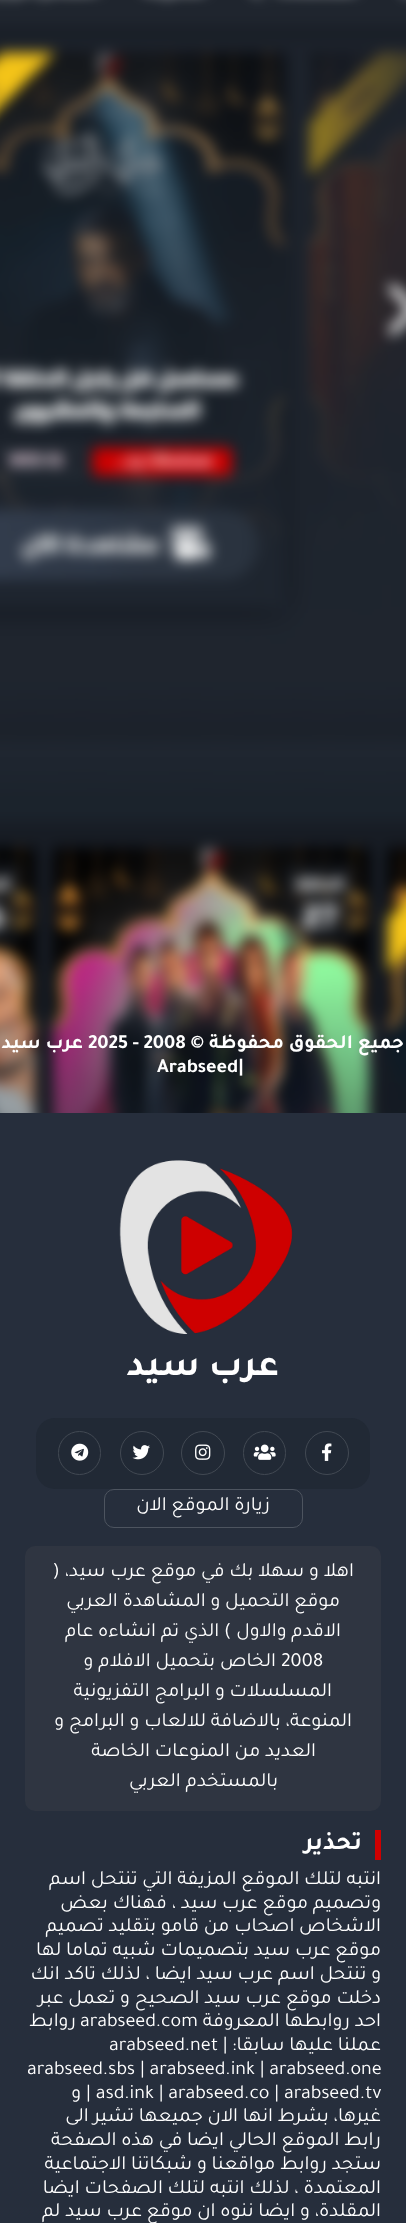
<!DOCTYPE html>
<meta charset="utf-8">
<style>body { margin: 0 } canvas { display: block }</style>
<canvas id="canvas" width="406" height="2223"></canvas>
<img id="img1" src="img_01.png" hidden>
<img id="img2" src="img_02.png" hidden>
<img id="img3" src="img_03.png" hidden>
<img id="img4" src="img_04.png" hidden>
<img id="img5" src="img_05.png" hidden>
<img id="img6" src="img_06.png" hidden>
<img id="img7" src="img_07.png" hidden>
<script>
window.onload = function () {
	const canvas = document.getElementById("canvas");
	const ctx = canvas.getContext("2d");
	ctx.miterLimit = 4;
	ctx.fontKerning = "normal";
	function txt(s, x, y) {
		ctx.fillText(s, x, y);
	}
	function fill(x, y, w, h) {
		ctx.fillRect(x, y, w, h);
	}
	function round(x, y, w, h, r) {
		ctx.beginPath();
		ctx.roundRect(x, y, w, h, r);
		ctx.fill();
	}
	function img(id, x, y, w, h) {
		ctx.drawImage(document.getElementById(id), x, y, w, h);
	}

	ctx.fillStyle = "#FFFFFF";
	fill(0, 0, 406, 2223);
	img("img1", 0, 0, 406, 1113);
	ctx.fillStyle = "#262E3C";
	fill(0, 1113, 406, 1110);
	img("img2", 119, 1160, 174, 174);
	ctx.fillStyle = "#212935";
	round(36, 1418, 334, 71, 19);
	ctx.beginPath();
	ctx.arc(327, 1453, 21.5, 0, Math.PI * 2);
	ctx.strokeStyle = "#424953";
	ctx.stroke();
	img("img3", 322, 1443, 10, 18);
	ctx.beginPath();
	ctx.roundRect(243.5, 1431.5, 42, 43, 21);
	ctx.stroke();
	img("img4", 253, 1444, 23, 16);
	ctx.beginPath();
	ctx.arc(203, 1453, 21.5, 0, Math.PI * 2);
	ctx.stroke();
	img("img5", 195, 1444, 16, 16);
	ctx.beginPath();
	ctx.arc(142, 1453, 21.5, 0, Math.PI * 2);
	ctx.stroke();
	img("img6", 132, 1445, 18, 15);
	ctx.beginPath();
	ctx.roundRect(58.5, 1431.5, 42, 43, 21);
	ctx.stroke();
	img("img7", 71, 1443, 18, 18);
	ctx.beginPath();
	ctx.roundRect(104.5, 1489.5, 198, 38, 9.5);
	ctx.strokeStyle = "#4D545F";
	ctx.stroke();
	ctx.fillStyle = "#2F3541";
	round(25, 1546, 356, 265, 10);
	ctx.fillStyle = "#CE0000";
	fill(375, 1830, 6, 30);
	ctx.direction = "rtl";
	ctx.font = "bold 20px Tajawal";
	ctx.fillStyle = "#FFFFFF";
	txt("جميع الحقوق محفوظة ©", 404, 1048);
	ctx.direction = "ltr";
	txt("2025 - 2008", 88, 1048);
	ctx.direction = "rtl";
	txt("عرب سيد", 83, 1048);
	ctx.direction = "ltr";
	txt("Arabseed|", 157, 1072);
	ctx.direction = "rtl";
	ctx.font = "bold 37.5px Tajawal";
	txt("عرب سيد", 279, 1375);
	ctx.font = "20px Tajawal";
	txt("زيارة الموقع الان", 270, 1510);
	txt("اهلا و سهلا بك في موقع عرب سيد، (", 354, 1576);
	txt("موقع التحميل و المشاهدة العربي", 340, 1606);
	txt("الاقدم والاول ) الذي تم انشاءه عام", 341, 1636);
	ctx.direction = "ltr";
	txt("2008", 281, 1666);
	ctx.direction = "rtl";
	txt("الخاص بتحميل الافلام و", 276, 1666);
	txt("المسلسلات و البرامج التفزيونية", 332, 1696);
	txt("المنوعة، بالاضافة للالعاب و البرامج و", 352, 1726);
	txt("العديد من المنوعات الخاصة", 316, 1756);
	txt("بالمستخدم العربي", 278, 1786);
	ctx.font = "bold 25px Tajawal";
	txt("تحذير", 362, 1849);
	ctx.font = "20px Tajawal";
	txt("انتبه لتلك الموقع المزيفة التي تنتحل اسم", 381, 1884);
	txt("وتصميم موقع عرب سيد ، فهناك بعض", 381, 1908);
	txt("الاشخاص اصحاب من قامو بتقليد تصميم", 381, 1931);
	txt("موقع عرب سيد بتصميمات شبيه تماما لها", 381, 1955);
	txt("و تنتحل اسم عرب سيد ايضا ، لذلك تاكد انك", 381, 1979);
	txt("دخلت موقع عرب سيد الصحيح و تعمل عبر", 381, 2003);
	txt("احد روابطها المعروفة", 381, 2026);
	ctx.direction = "ltr";
	txt("arabseed.com", 80, 2026);
	ctx.direction = "rtl";
	txt("روابط", 76, 2026);
	txt("عملنا عليها سابقا:", 381, 2050);
	ctx.direction = "ltr";
	txt("arabseed.net |", 109, 2050);
	txt("arabseed.sbs | arabseed.ink | arabseed.one", 27, 2074);
	txt("| asd.ink | arabseed.co | arabseed.tv", 86, 2098);
	ctx.direction = "rtl";
	txt("و", 81, 2098);
	txt("غيرها، بشرط انها الان جميعها تشير الى", 381, 2121);
	txt("رابط الموقع الحالي", 381, 2145);
	txt("ايضا في هذه الصفحة", 224, 2145);
	txt("ستجد روابط مواقعنا و شبكاتنا الاجتماعية", 381, 2169);
	txt("المعتمدة ، لذلك انتبه لتلك الصفحات ايضا", 381, 2193);
	txt("المقلدة، و ايضا ننوه ان موقع عرب سيد لم", 381, 2216);
};
</script>
